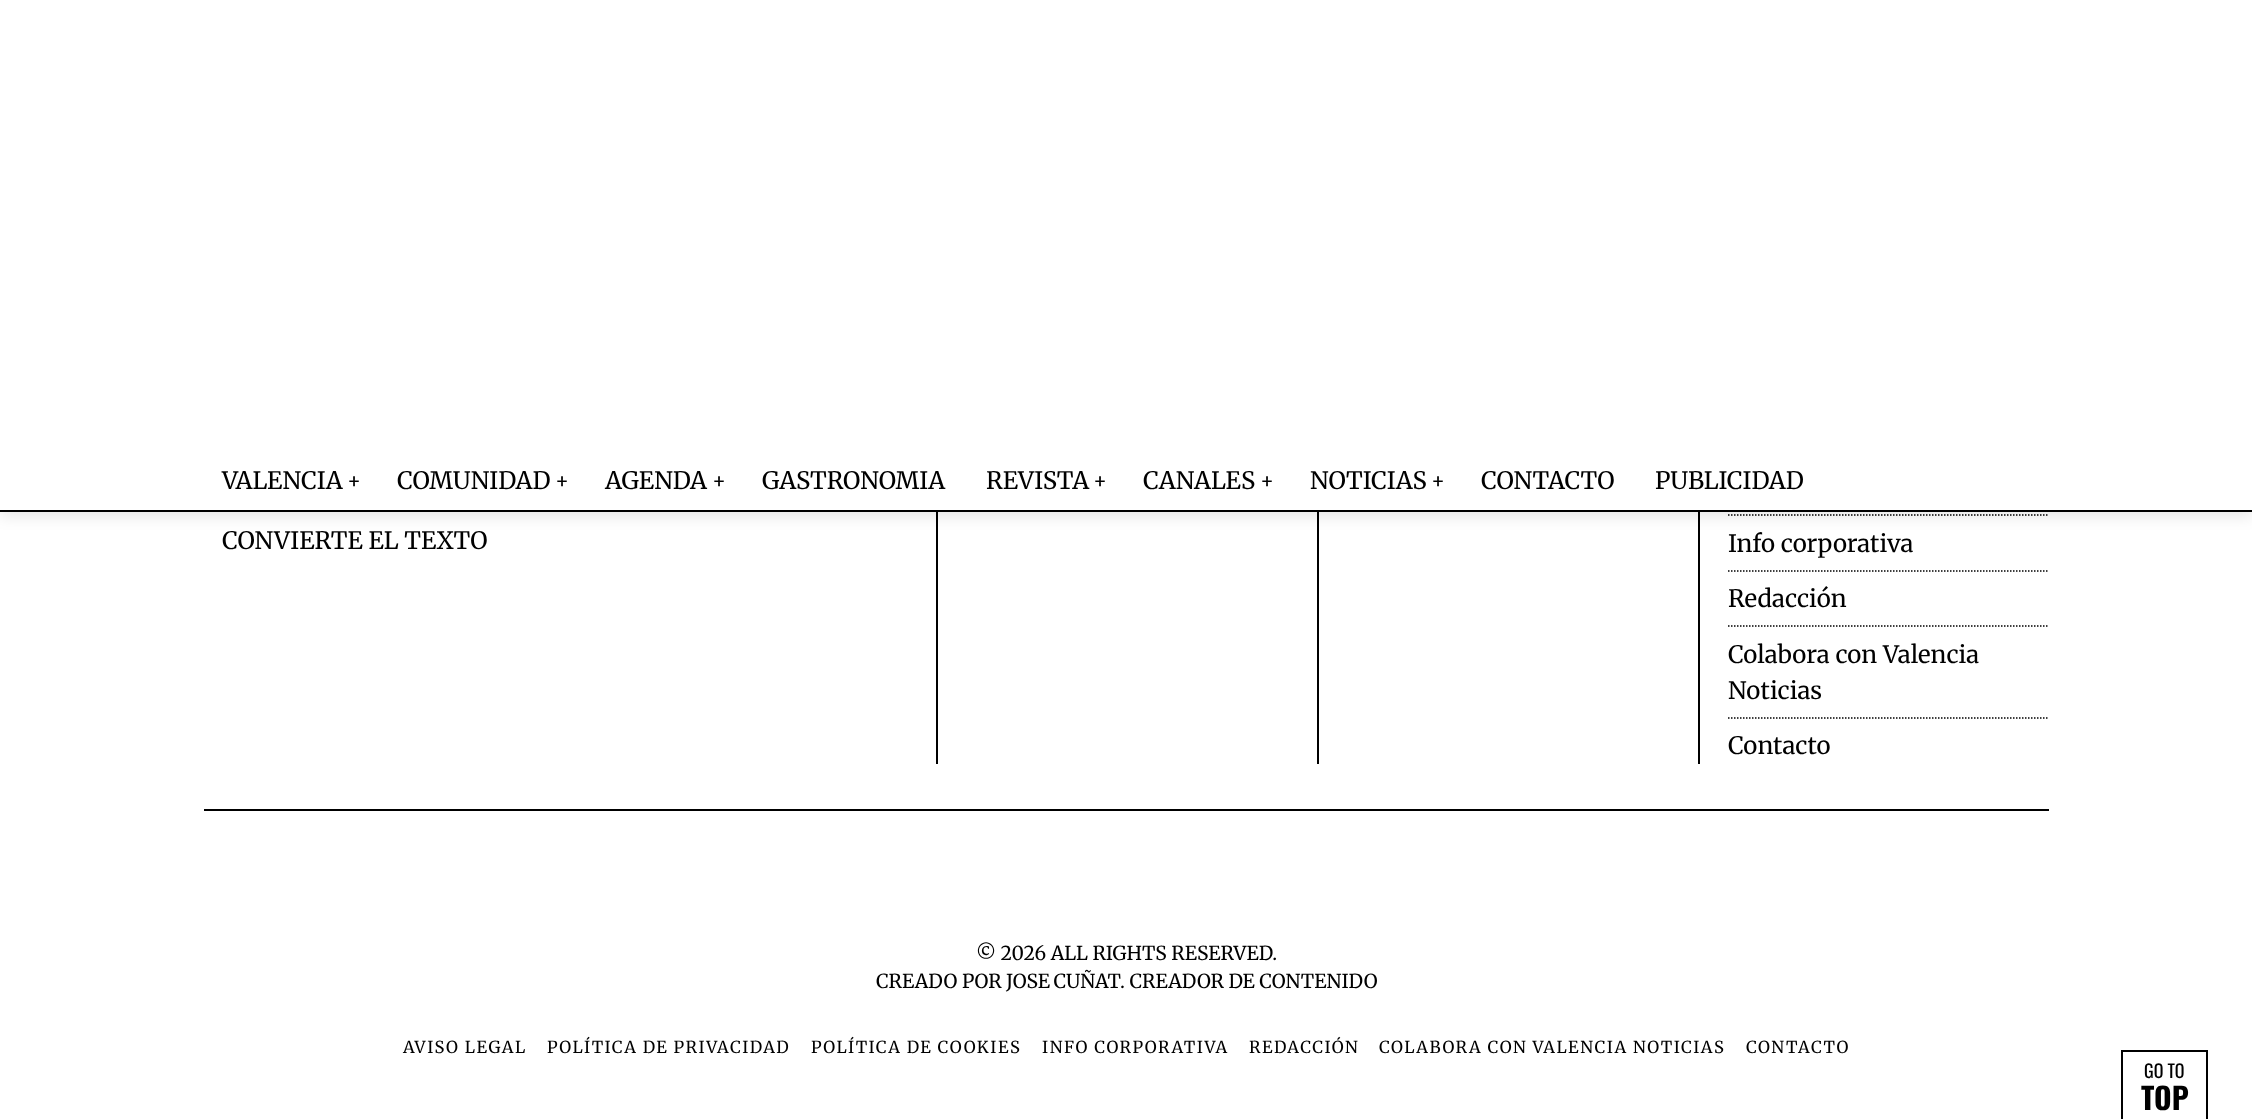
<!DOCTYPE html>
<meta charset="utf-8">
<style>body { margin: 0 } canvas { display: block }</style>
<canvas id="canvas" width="2252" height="1119"></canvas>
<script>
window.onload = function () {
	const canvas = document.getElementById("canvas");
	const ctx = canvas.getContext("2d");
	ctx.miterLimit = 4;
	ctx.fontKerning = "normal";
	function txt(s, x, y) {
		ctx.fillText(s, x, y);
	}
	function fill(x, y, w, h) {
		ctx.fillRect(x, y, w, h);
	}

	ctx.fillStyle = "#FFFFFF";
	fill(0, 0, 2252, 1119);
	ctx.fillStyle = "#000000";
	fill(936, 512, 2, 252);
	fill(1317, 512, 2, 252);
	fill(1698, 512, 2, 252);
	ctx.beginPath();
	ctx.moveTo(1728, 515);
	ctx.lineTo(2049, 515);
	ctx.strokeStyle = "#000000";
	ctx.lineWidth = 1.5;
	ctx.setLineDash([1.5, 1.5]);
	ctx.stroke();
	ctx.fillStyle = "rgba(0, 0, 0, 0.1)";
	ctx.filter = "blur(7.5px)";
	ctx.beginPath();
	ctx.rect(0, 5, 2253, 511);
	ctx.fill();
	ctx.filter = "none";
	ctx.fillStyle = "#FFFFFF";
	fill(0, 0, 2252, 510);
	ctx.fillStyle = "#000000";
	fill(0, 510, 2252, 2);
	ctx.beginPath();
	ctx.moveTo(1728, 571);
	ctx.lineTo(2049, 571);
	ctx.stroke();
	ctx.beginPath();
	ctx.moveTo(1728, 626);
	ctx.lineTo(2049, 626);
	ctx.stroke();
	ctx.beginPath();
	ctx.moveTo(1728, 718);
	ctx.lineTo(2049, 718);
	ctx.stroke();
	fill(204, 809, 1845, 2);
	ctx.lineWidth = 2;
	ctx.setLineDash([]);
	ctx.strokeRect(2122, 1051, 85, 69);
	ctx.font = "24px Merriweather";
	txt("VALENCIA", 222, 489);
	ctx.font = "21px Merriweather";
	txt("+", 347, 488);
	ctx.font = "24px Merriweather";
	txt("COMUNIDAD", 397, 489);
	ctx.font = "21px Merriweather";
	txt("+", 555, 488);
	ctx.font = "24px Merriweather";
	txt("AGENDA", 605, 489);
	ctx.font = "21px Merriweather";
	txt("+", 712, 488);
	ctx.font = "24px Merriweather";
	txt("GASTRONOMIA", 762, 489);
	txt("REVISTA", 986, 489);
	ctx.font = "21px Merriweather";
	txt("+", 1093, 488);
	ctx.font = "24px Merriweather";
	txt("CANALES", 1143, 489);
	ctx.font = "21px Merriweather";
	txt("+", 1260, 488);
	ctx.font = "24px Merriweather";
	txt("NOTICIAS", 1310, 489);
	ctx.font = "21px Merriweather";
	txt("+", 1431, 488);
	ctx.font = "24px Merriweather";
	txt("CONTACTO", 1481, 489);
	txt("PUBLICIDAD", 1655, 489);
	txt("CONVIERTE EL TEXTO", 222, 549);
	txt("Info corporativa", 1728, 552);
	txt("Redacción", 1728, 607);
	txt("Colabora con Valencia", 1728, 663);
	txt("Noticias", 1728, 699);
	txt("Contacto", 1728, 754);
	ctx.font = "19.25px Merriweather";
	txt("© 2026 ALL RIGHTS RESERVED.", 976, 960);
	txt("CREADO POR", 876, 988);
	ctx.wordSpacing = "-1px";
	txt("JOSE CUÑAT", 1006, 988);
	ctx.wordSpacing = "0px";
	txt(". CREADOR DE CONTENIDO", 1120, 988);
	ctx.letterSpacing = "1.5px";
	ctx.font = "16.5px Merriweather";
	txt("AVISO LEGAL", 403, 1053);
	txt("POLÍTICA DE PRIVACIDAD", 547, 1053);
	txt("POLÍTICA DE COOKIES", 811, 1053);
	txt("INFO CORPORATIVA", 1042, 1053);
	txt("REDACCIÓN", 1249, 1053);
	txt("COLABORA CON VALENCIA NOTICIAS", 1379, 1053);
	txt("CONTACTO", 1746, 1053);
	ctx.letterSpacing = "0px";
	ctx.font = "18px Oswald";
	txt("GO TO", 2144, 1078);
	ctx.font = "bold 30px Oswald";
	txt("TOP", 2141, 1110);
};
</script>
